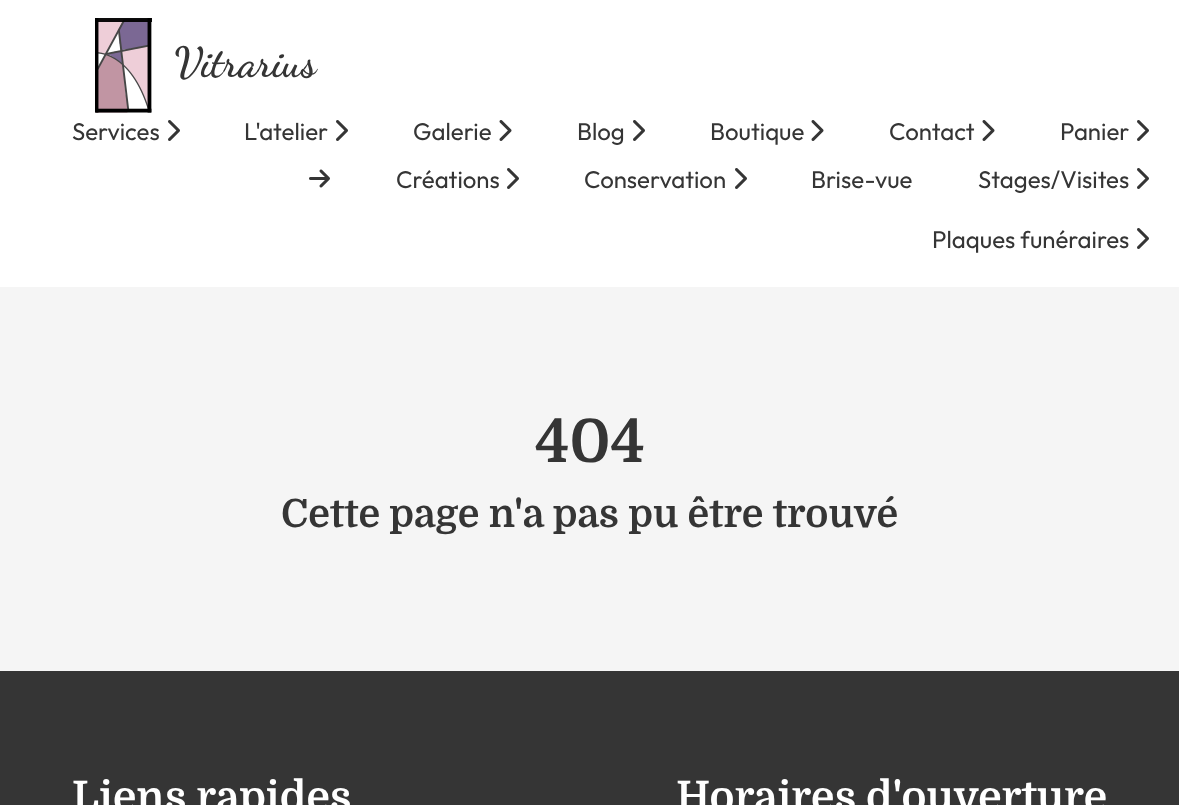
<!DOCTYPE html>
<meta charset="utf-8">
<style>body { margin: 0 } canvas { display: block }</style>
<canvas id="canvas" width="1179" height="805"></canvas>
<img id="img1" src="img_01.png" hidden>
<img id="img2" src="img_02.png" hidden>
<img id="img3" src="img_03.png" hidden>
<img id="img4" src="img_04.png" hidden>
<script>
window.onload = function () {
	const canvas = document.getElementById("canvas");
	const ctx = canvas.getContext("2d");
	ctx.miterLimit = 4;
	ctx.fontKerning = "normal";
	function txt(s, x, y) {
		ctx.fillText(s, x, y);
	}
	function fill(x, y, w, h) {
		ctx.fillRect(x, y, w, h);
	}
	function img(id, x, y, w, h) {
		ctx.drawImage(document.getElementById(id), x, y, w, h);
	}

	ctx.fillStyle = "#FFFFFF";
	fill(0, 0, 1179, 805);
	img("img1", 95, 18, 57, 95);
	img("img2", 168, 120, 12, 21);
	img("img2", 336, 120, 12, 21);
	img("img3", 499, 120, 13, 21);
	img("img2", 633, 120, 12, 21);
	img("img3", 811, 120, 13, 21);
	img("img3", 982, 120, 13, 21);
	img("img2", 1137, 120, 12, 21);
	img("img4", 309, 169, 21, 19);
	img("img2", 507, 168, 12, 21);
	img("img2", 735, 168, 12, 21);
	img("img2", 1137, 168, 12, 21);
	img("img2", 1137, 228, 12, 21);
	ctx.fillStyle = "#F5F5F5";
	fill(0, 287, 1179, 384);
	ctx.fillStyle = "#353535";
	fill(0, 671, 1179, 134);
	ctx.font = "bold 42px Dancing Script";
	txt("Vitrarius", 174, 76);
	ctx.font = "24px Outfit";
	txt("Services", 72, 140);
	txt("L'atelier", 244, 140);
	txt("Galerie", 413, 140);
	txt("Blog", 577, 140);
	txt("Boutique", 710, 140);
	txt("Contact", 889, 140);
	txt("Panier", 1060, 140);
	txt("Créations", 396, 188);
	txt("Conservation", 584, 188);
	txt("Brise-vue", 811, 188);
	txt("Stages/Visites", 978, 188);
	txt("Plaques funéraires", 932, 248);
	ctx.font = "bold 60px Domine";
	txt("404", 535, 462);
	ctx.font = "bold 39px Domine";
	txt("Cette page n'a pas pu être trouvé", 281, 527);
	ctx.font = "bold 42px Domine";
	ctx.fillStyle = "#FFFFFF";
	txt("Liens rapides", 72, 811);
	txt("Horaires d'ouverture", 676, 811);
};
</script>
